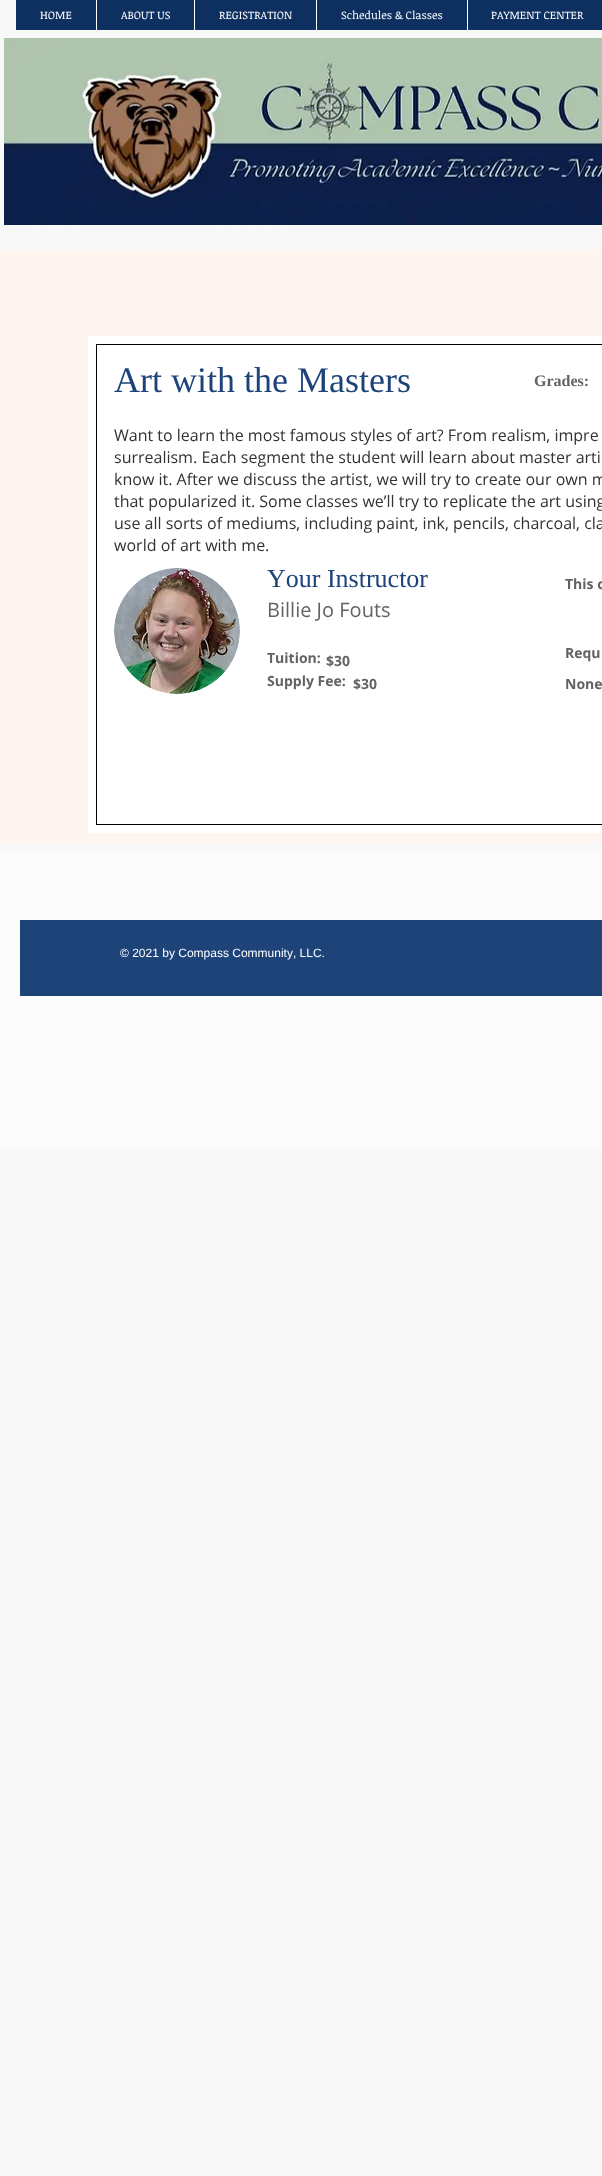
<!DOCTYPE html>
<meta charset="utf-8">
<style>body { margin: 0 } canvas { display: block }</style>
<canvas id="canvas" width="602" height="2176"></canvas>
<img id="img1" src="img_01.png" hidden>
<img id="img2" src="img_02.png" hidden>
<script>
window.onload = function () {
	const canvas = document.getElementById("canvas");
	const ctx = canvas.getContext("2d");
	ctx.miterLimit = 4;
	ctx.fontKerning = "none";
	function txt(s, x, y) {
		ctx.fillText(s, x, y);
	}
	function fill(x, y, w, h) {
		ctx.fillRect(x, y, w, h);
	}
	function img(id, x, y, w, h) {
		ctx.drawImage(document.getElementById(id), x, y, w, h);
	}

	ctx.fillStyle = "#F8F8F8";
	fill(0, 0, 602, 2176);
	ctx.fillStyle = "#0E3060";
	fill(16, 0, 586, 30);
	ctx.fillStyle = "#FFFFFF";
	fill(96, 0, 1, 30);
	fill(194, 0, 1, 30);
	fill(316, 0, 1, 30);
	fill(467, 0, 1, 30);
	img("img1", 4, 38, 598, 187);
	ctx.fillStyle = "#FFF5F0";
	fill(0, 250, 602, 593);
	ctx.fillStyle = "#FFFFFF";
	fill(88, 336, 514, 497);
	ctx.strokeStyle = "#000000";
	ctx.strokeRect(96.5, 344.5, 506, 480);
	img("img2", 114, 568, 126, 126);
	ctx.fillStyle = "#FCFCFC";
	fill(0, 853, 602, 295);
	ctx.fillStyle = "#1D4379";
	fill(20, 920, 582, 76);
	ctx.font = "11px Noticia Text";
	ctx.fillStyle = "#FFFFFF";
	txt("HOME", 40, 19);
	txt("ABOUT US", 121, 19);
	txt("REGISTRATION", 219, 19);
	txt("Schedules & Classes", 341, 19);
	txt("PAYMENT CENTER", 491, 19);
	ctx.font = "36px Liberation Serif";
	ctx.fillStyle = "#1D4379";
	txt("Art with the Masters", 114, 392);
	ctx.font = "bold 16px Liberation Serif";
	ctx.fillStyle = "#636363";
	txt("Grades:", 534, 386);
	ctx.font = "16px Open Sans";
	ctx.fillStyle = "#323232";
	txt("Want to learn the most famous styles of art? From realism, impre", 114, 441);
	txt("surrealism. Each segment the student will learn about master arti", 114, 463);
	txt("know it. After we discuss the artist, we will try to create our own m", 114, 485);
	txt("that popularized it. Some classes we’ll try to replicate the art using", 114, 507);
	txt("use all sorts of mediums, including paint, ink, pencils, charcoal, cla", 114, 529);
	txt("world of art with me.", 114, 551);
	ctx.font = "26px Liberation Serif";
	ctx.fillStyle = "#1D4379";
	txt("Your Instructor", 267, 587);
	ctx.font = "bold 14px Open Sans";
	ctx.fillStyle = "#636363";
	txt("This c", 565, 589);
	ctx.font = "20px Open Sans";
	txt("Billie Jo Fouts", 267, 617);
	ctx.font = "bold 14px Open Sans";
	txt("Tuition:", 267, 663);
	txt("$30", 326, 666);
	txt("Requ", 565, 658);
	txt("Supply Fee:", 267, 686);
	txt("$30", 353, 689);
	txt("None", 565, 689);
	ctx.font = "12px Liberation Sans";
	ctx.fillStyle = "#FFFFFF";
	txt("© 2021 by Compass Community, LLC.", 120, 957);
};
</script>
